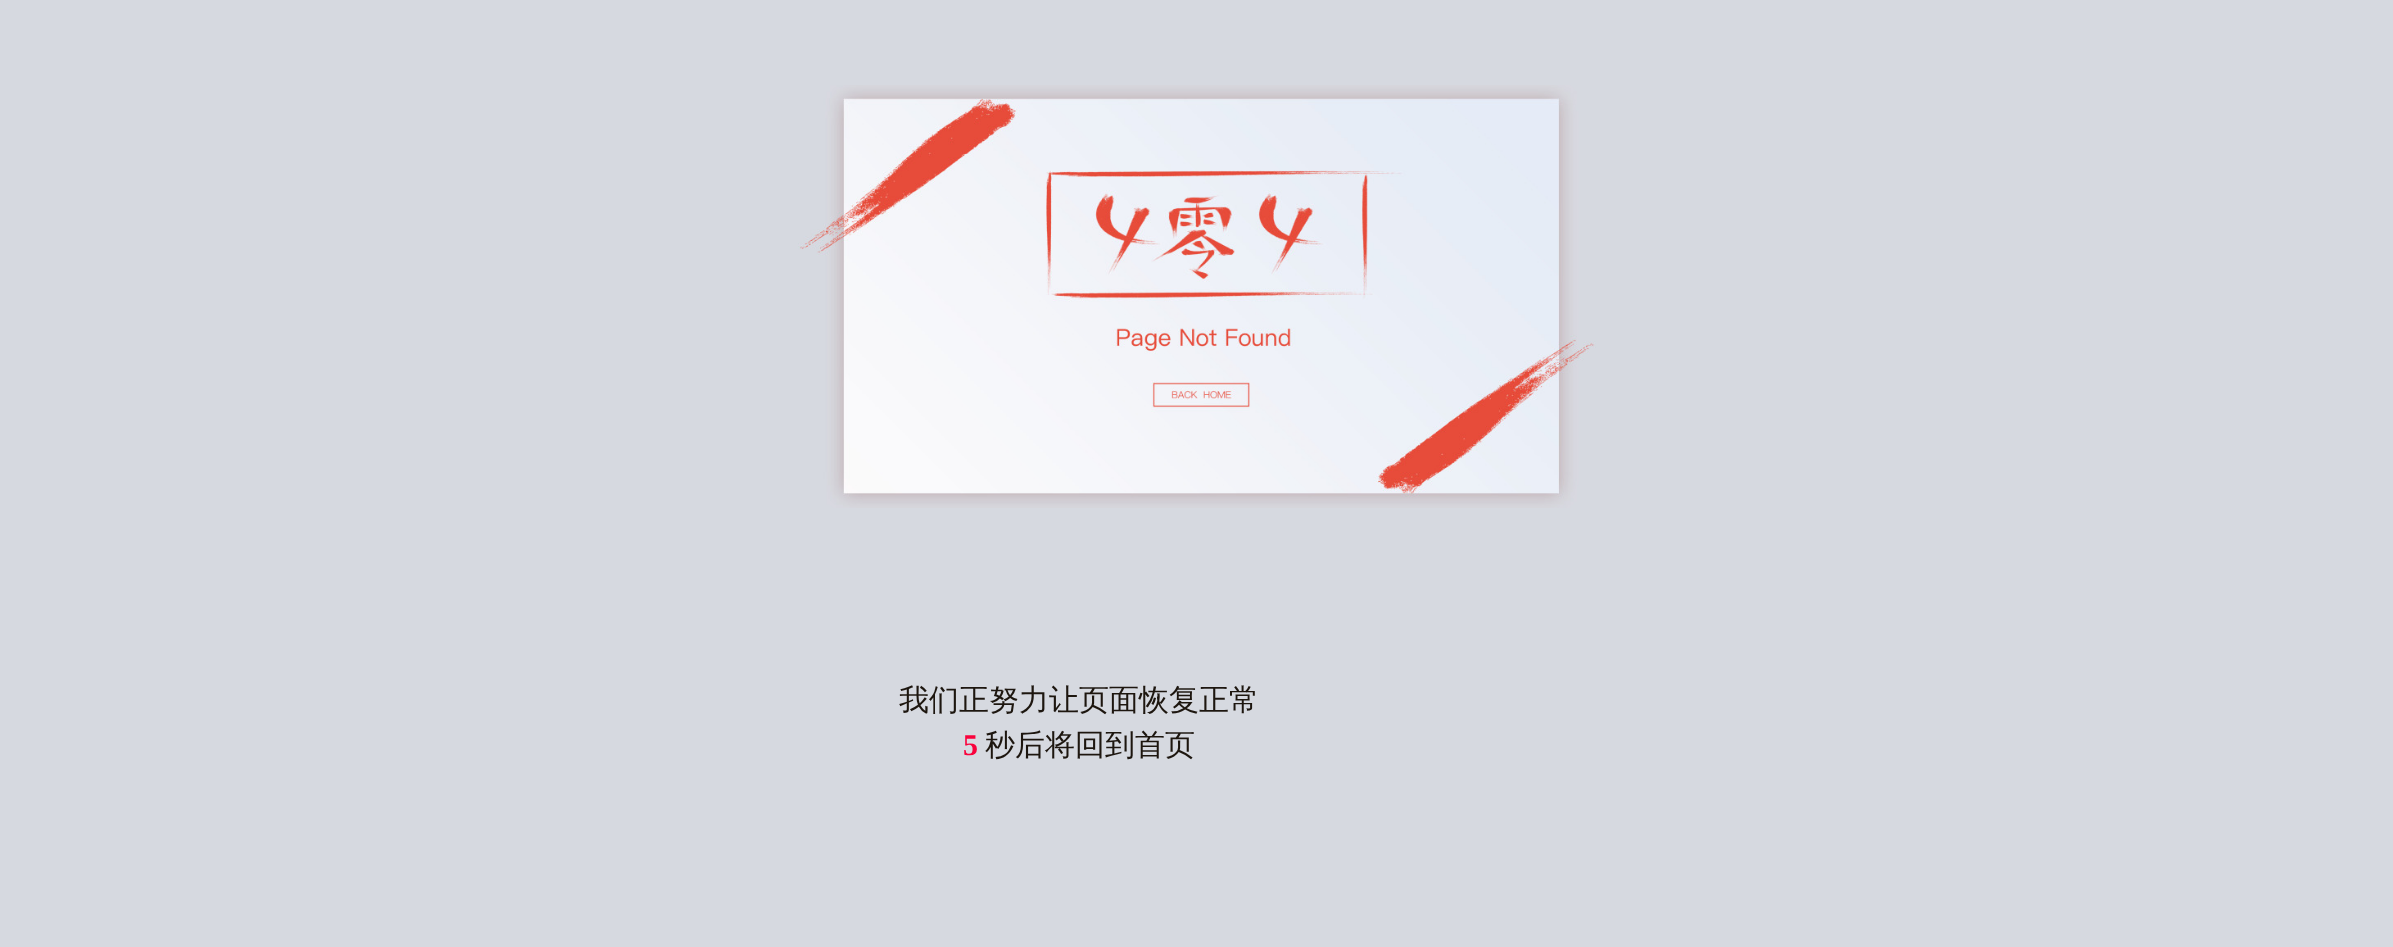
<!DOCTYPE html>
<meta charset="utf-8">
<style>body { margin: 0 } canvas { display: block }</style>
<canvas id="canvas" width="2393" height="947"></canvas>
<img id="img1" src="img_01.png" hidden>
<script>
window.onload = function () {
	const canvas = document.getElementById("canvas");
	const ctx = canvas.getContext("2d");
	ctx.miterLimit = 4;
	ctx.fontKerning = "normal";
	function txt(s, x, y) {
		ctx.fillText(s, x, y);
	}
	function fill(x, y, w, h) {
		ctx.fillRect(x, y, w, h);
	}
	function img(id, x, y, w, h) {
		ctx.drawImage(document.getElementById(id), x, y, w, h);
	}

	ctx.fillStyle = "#D6D9E0";
	fill(0, 0, 2393, 947);
	img("img1", 798, 85, 798, 423);
	ctx.font = "500 30px WenQuanYi Zen Hei";
	ctx.fillStyle = "#1D160F";
	txt("我们正努力让页面恢复正常", 899, 710);
	ctx.font = "bold 30px Liberation Serif";
	ctx.fillStyle = "#F9023C";
	txt("5", 963, 755);
	ctx.font = "500 30px WenQuanYi Zen Hei";
	ctx.fillStyle = "#1D160F";
	txt("秒后将回到首页", 985, 755);
};
</script>
